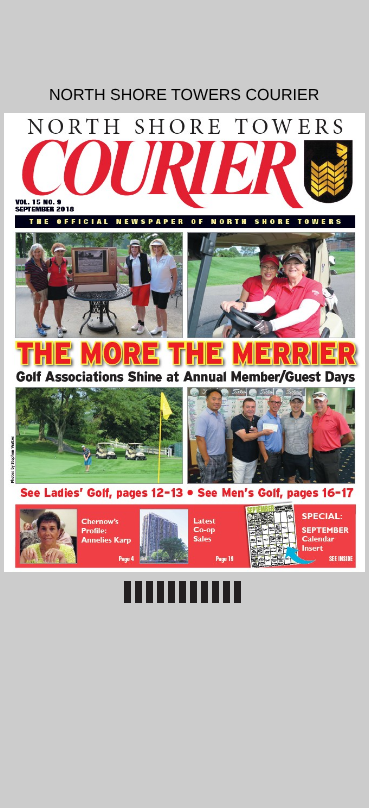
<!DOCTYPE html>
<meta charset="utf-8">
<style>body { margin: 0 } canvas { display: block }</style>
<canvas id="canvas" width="369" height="808"></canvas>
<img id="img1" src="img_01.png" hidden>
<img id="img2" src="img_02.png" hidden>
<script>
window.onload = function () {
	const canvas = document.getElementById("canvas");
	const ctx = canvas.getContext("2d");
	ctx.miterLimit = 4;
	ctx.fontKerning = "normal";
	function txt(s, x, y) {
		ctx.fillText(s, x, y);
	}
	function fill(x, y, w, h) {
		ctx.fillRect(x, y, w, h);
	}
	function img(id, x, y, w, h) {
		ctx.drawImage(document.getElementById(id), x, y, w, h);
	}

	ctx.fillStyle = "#CCCCCC";
	fill(0, 0, 369, 808);
	img("img1", 4, 113, 361, 459);
	img("img2", 124, 581, 117, 22);
	ctx.font = "16px Liberation Sans";
	ctx.fillStyle = "#000000";
	txt("NORTH SHORE TOWERS COURIER", 49, 100);
};
</script>
